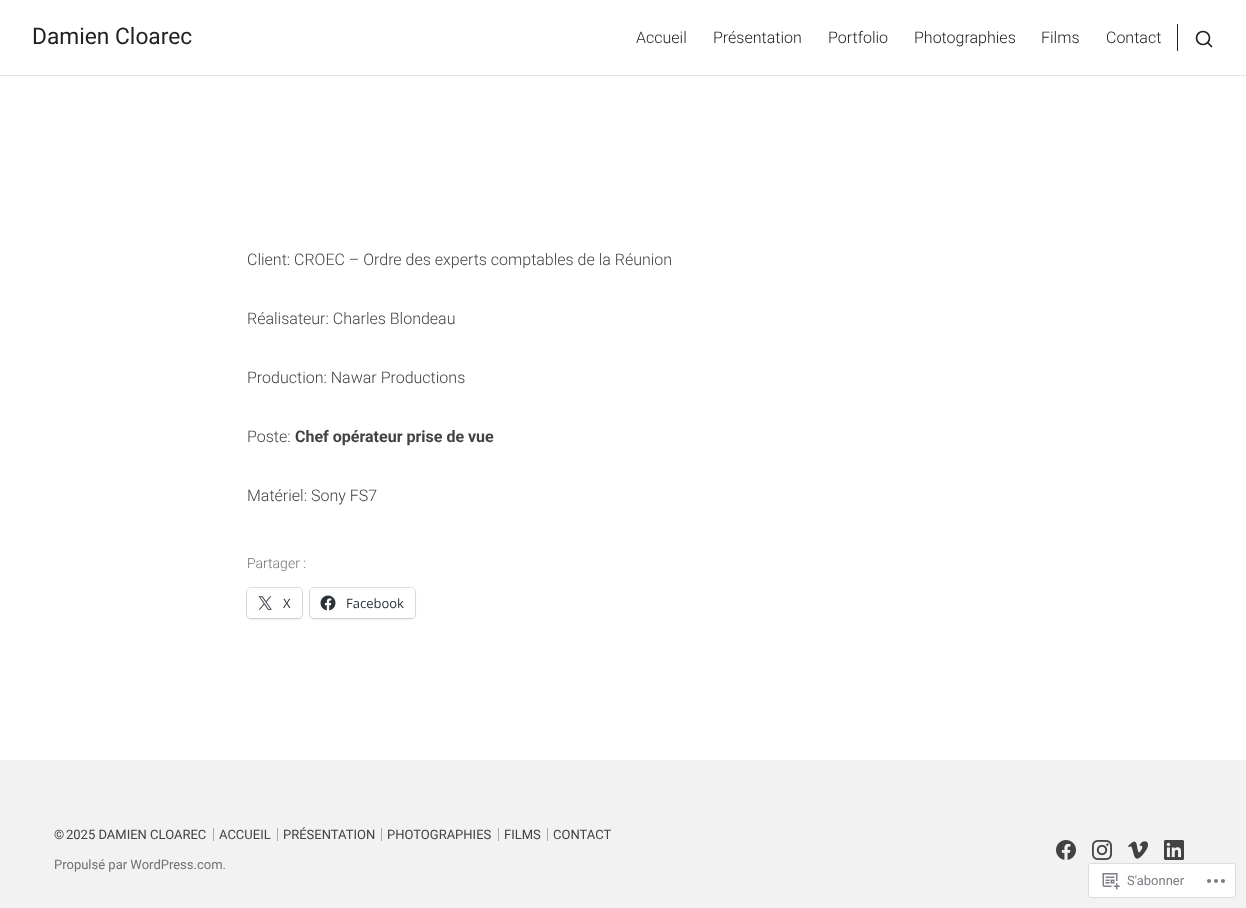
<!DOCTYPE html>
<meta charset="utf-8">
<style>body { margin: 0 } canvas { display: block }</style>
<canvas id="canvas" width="1246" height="908"></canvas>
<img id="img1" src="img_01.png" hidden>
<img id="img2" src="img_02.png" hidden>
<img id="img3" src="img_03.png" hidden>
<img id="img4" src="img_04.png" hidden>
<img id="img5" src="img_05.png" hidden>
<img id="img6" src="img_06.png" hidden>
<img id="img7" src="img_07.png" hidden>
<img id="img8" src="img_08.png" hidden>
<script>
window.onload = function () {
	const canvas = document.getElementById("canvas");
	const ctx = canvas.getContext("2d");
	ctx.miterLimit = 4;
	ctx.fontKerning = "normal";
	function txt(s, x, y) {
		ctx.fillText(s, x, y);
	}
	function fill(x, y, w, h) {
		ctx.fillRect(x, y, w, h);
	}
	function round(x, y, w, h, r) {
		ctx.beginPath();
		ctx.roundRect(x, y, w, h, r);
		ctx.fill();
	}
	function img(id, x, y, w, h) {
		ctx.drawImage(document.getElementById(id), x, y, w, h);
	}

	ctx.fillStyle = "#FFFFFF";
	fill(0, 0, 1246, 908);
	ctx.fillStyle = "#E2E2E4";
	fill(0, 75, 1246, 1);
	ctx.fillStyle = "#222221";
	fill(1177, 24, 1, 27);
	ctx.beginPath();
	ctx.arc(1203, 38, 6.5, 0, Math.PI * 2);
	ctx.strokeStyle = "#222221";
	ctx.lineWidth = 1.7;
	ctx.stroke();
	ctx.beginPath();
	ctx.moveTo(1211.5, 46.5);
	ctx.lineTo(1208, 43);
	ctx.lineCap = "round";
	ctx.lineJoin = "round";
	ctx.stroke();
	ctx.beginPath();
	ctx.roundRect(246.5, 587.5, 56, 31, 4.5);
	ctx.strokeStyle = "#E0E0E0";
	ctx.lineWidth = 1;
	ctx.lineJoin = "miter";
	ctx.stroke();
	ctx.fillStyle = "rgba(0, 0, 0, 0.12)";
	ctx.filter = "blur(1px)";
	ctx.beginPath();
	ctx.roundRect(247, 589, 55, 30, 4);
	ctx.fill();
	ctx.filter = "none";
	ctx.fillStyle = "#FFFFFF";
	round(247, 588, 55, 30, 4);
	img("img1", 258, 596, 14, 14);
	ctx.beginPath();
	ctx.roundRect(309.5, 587.5, 106, 31, 4.5);
	ctx.stroke();
	ctx.fillStyle = "rgba(0, 0, 0, 0.12)";
	ctx.filter = "blur(1px)";
	ctx.beginPath();
	ctx.roundRect(310, 589, 105, 30, 4);
	ctx.fill();
	ctx.filter = "none";
	ctx.fillStyle = "#FFFFFF";
	round(310, 588, 105, 30, 4);
	img("img2", 320, 595, 16, 16);
	ctx.fillStyle = "#F2F2F2";
	fill(0, 760, 1246, 148);
	ctx.fillStyle = "#A9A9A9";
	fill(213, 828, 1, 13);
	fill(277, 828, 1, 13);
	fill(381, 828, 1, 13);
	fill(498, 828, 1, 13);
	fill(547, 828, 1, 13);
	img("img3", 1056, 840, 20, 20);
	img("img4", 1092, 840, 20, 20);
	img("img5", 1128, 841, 20, 18);
	img("img6", 1164, 840, 20, 20);
	ctx.fillStyle = "#FFFFFF";
	ctx.beginPath();
	ctx.roundRect(1088.5, 863.5, 147, 34, 2.5);
	ctx.fill();
	ctx.strokeStyle = "#DCDCDE";
	ctx.stroke();
	img("img7", 1102, 873, 18, 17);
	img("img8", 1207, 879, 18, 4);
	ctx.font = "22.75px Roboto";
	ctx.fillStyle = "#222221";
	txt("Damien Cloarec", 32, 44);
	ctx.font = "300 16px Roboto";
	txt("Accueil", 636, 43);
	txt("Présentation", 713, 43);
	txt("Portfolio", 828, 43);
	txt("Photographies", 914, 43);
	txt("Films", 1041, 43);
	txt("Contact", 1106, 43);
	ctx.fillStyle = "#424242";
	txt("Client: CROEC – Ordre des experts comptables de la Réunion", 247, 265);
	txt("Réalisateur: Charles Blondeau", 247, 324);
	txt("Production: Nawar Productions", 247, 383);
	txt("Poste:", 247, 442);
	ctx.font = "bold 16px Roboto";
	txt("Chef opérateur prise de vue", 295, 442);
	ctx.font = "300 16px Roboto";
	txt("Matériel: Sony FS7", 247, 501);
	ctx.font = "300 14px Roboto";
	ctx.fillStyle = "#6E7273";
	txt("Partager :", 247, 568);
	ctx.font = "13px Open Sans";
	ctx.fillStyle = "#2C3338";
	txt("X", 283, 608);
	txt("Facebook", 346, 608);
	ctx.font = "13px Roboto";
	ctx.fillStyle = "#424242";
	txt("©", 54, 839);
	txt("2025 DAMIEN CLOAREC", 66, 839);
	txt("ACCUEIL", 219, 839);
	txt("PRÉSENTATION", 283, 839);
	txt("PHOTOGRAPHIES", 387, 839);
	txt("FILMS", 504, 839);
	txt("CONTACT", 553, 839);
	ctx.fillStyle = "#6E7273";
	txt("Propulsé par WordPress.com.", 54, 869);
	ctx.fillStyle = "#7A7E84";
	txt("S'abonner", 1127, 885);
};
</script>
